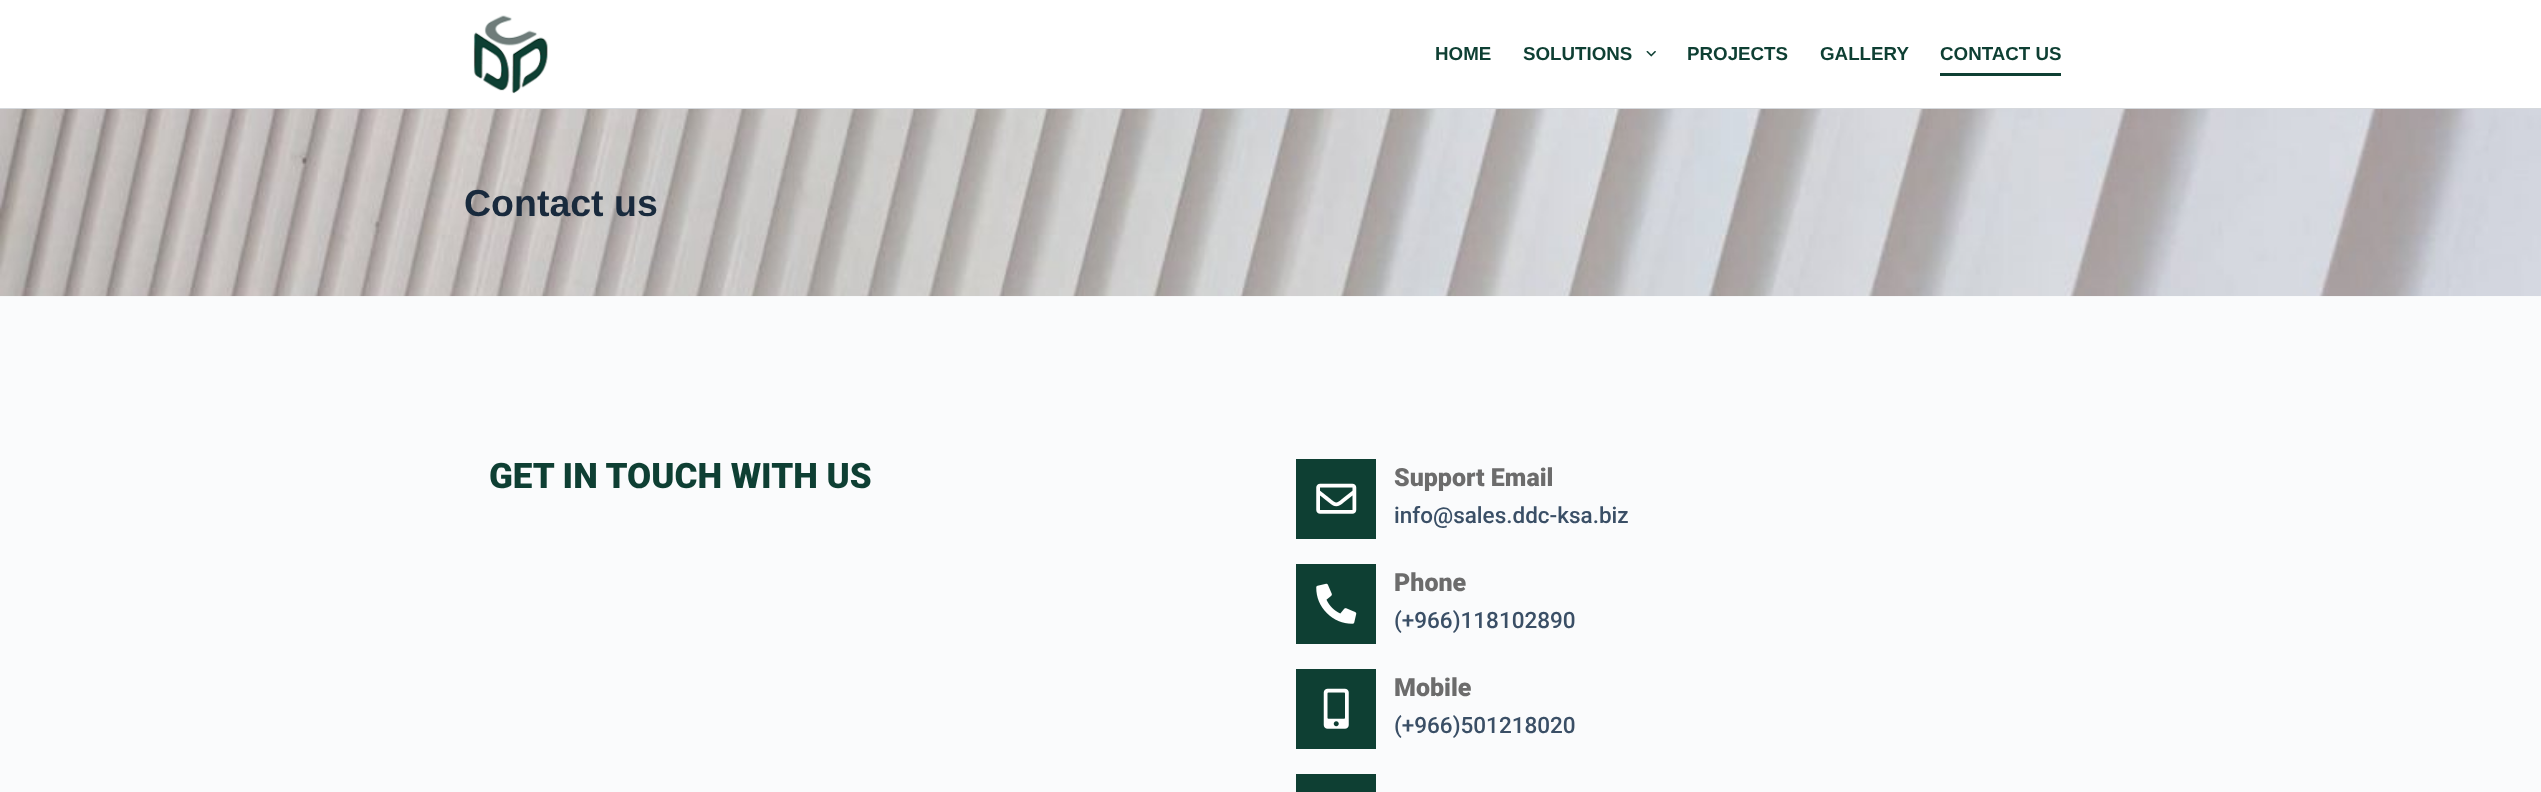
<!DOCTYPE html>
<meta charset="utf-8">
<style>body { margin: 0 } canvas { display: block }</style>
<canvas id="canvas" width="2541" height="792"></canvas>
<img id="img1" src="img_01.png" hidden>
<img id="img2" src="img_02.png" hidden>
<img id="img3" src="img_03.png" hidden>
<img id="img4" src="img_04.png" hidden>
<img id="img5" src="img_05.png" hidden>
<img id="img6" src="img_06.png" hidden>
<script>
window.onload = function () {
	const canvas = document.getElementById("canvas");
	const ctx = canvas.getContext("2d");
	ctx.miterLimit = 4;
	ctx.fontKerning = "normal";
	function txt(s, x, y) {
		ctx.fillText(s, x, y);
	}
	function fill(x, y, w, h) {
		ctx.fillRect(x, y, w, h);
	}
	function img(id, x, y, w, h) {
		ctx.drawImage(document.getElementById(id), x, y, w, h);
	}

	ctx.fillStyle = "#FAFBFC";
	fill(0, 0, 2541, 792);
	ctx.fillStyle = "#FFFFFF";
	fill(0, 0, 2541, 108);
	ctx.fillStyle = "#D5D8DC";
	fill(0, 108, 2541, 1);
	img("img1", 473, 15, 75, 79);
	img("img2", 1646, 51, 10, 6);
	ctx.fillStyle = "#0E3F33";
	fill(1940, 73, 121, 3);
	img("img3", 0, 109, 2541, 188);
	fill(1296, 459, 80, 80);
	img("img4", 1316, 483, 41, 31);
	fill(1296, 564, 80, 80);
	img("img5", 1316, 583, 41, 41);
	fill(1296, 669, 80, 80);
	img("img6", 1323, 688, 26, 41);
	fill(1296, 774, 80, 18);
	ctx.font = "bold 18.75px Liberation Sans";
	txt("HOME", 1435, 60);
	txt("SOLUTIONS", 1523, 60);
	txt("PROJECTS", 1687, 60);
	txt("GALLERY", 1820, 60);
	txt("CONTACT US", 1940, 60);
	ctx.font = "bold 37.5px Liberation Sans";
	ctx.fillStyle = "#192A3D";
	txt("Contact us", 464, 216);
	ctx.font = "900 35px Roboto";
	ctx.fillStyle = "#0E3F33";
	txt("GET IN TOUCH WITH US", 489, 488);
	ctx.font = "900 25px Roboto";
	ctx.fillStyle = "#6C6C6C";
	txt("Support Email", 1394, 486);
	ctx.font = "500 22.5px Roboto";
	ctx.fillStyle = "#3A4F66";
	txt("info@sales.ddc-ksa.biz", 1394, 523);
	ctx.font = "900 25px Roboto";
	ctx.fillStyle = "#6C6C6C";
	txt("Phone", 1394, 591);
	ctx.font = "500 22.5px Roboto";
	ctx.fillStyle = "#3A4F66";
	txt("(+966)118102890", 1394, 628);
	ctx.font = "900 25px Roboto";
	ctx.fillStyle = "#6C6C6C";
	txt("Mobile", 1394, 696);
	ctx.font = "500 22.5px Roboto";
	ctx.fillStyle = "#3A4F66";
	txt("(+966)501218020", 1394, 733);
};
</script>
